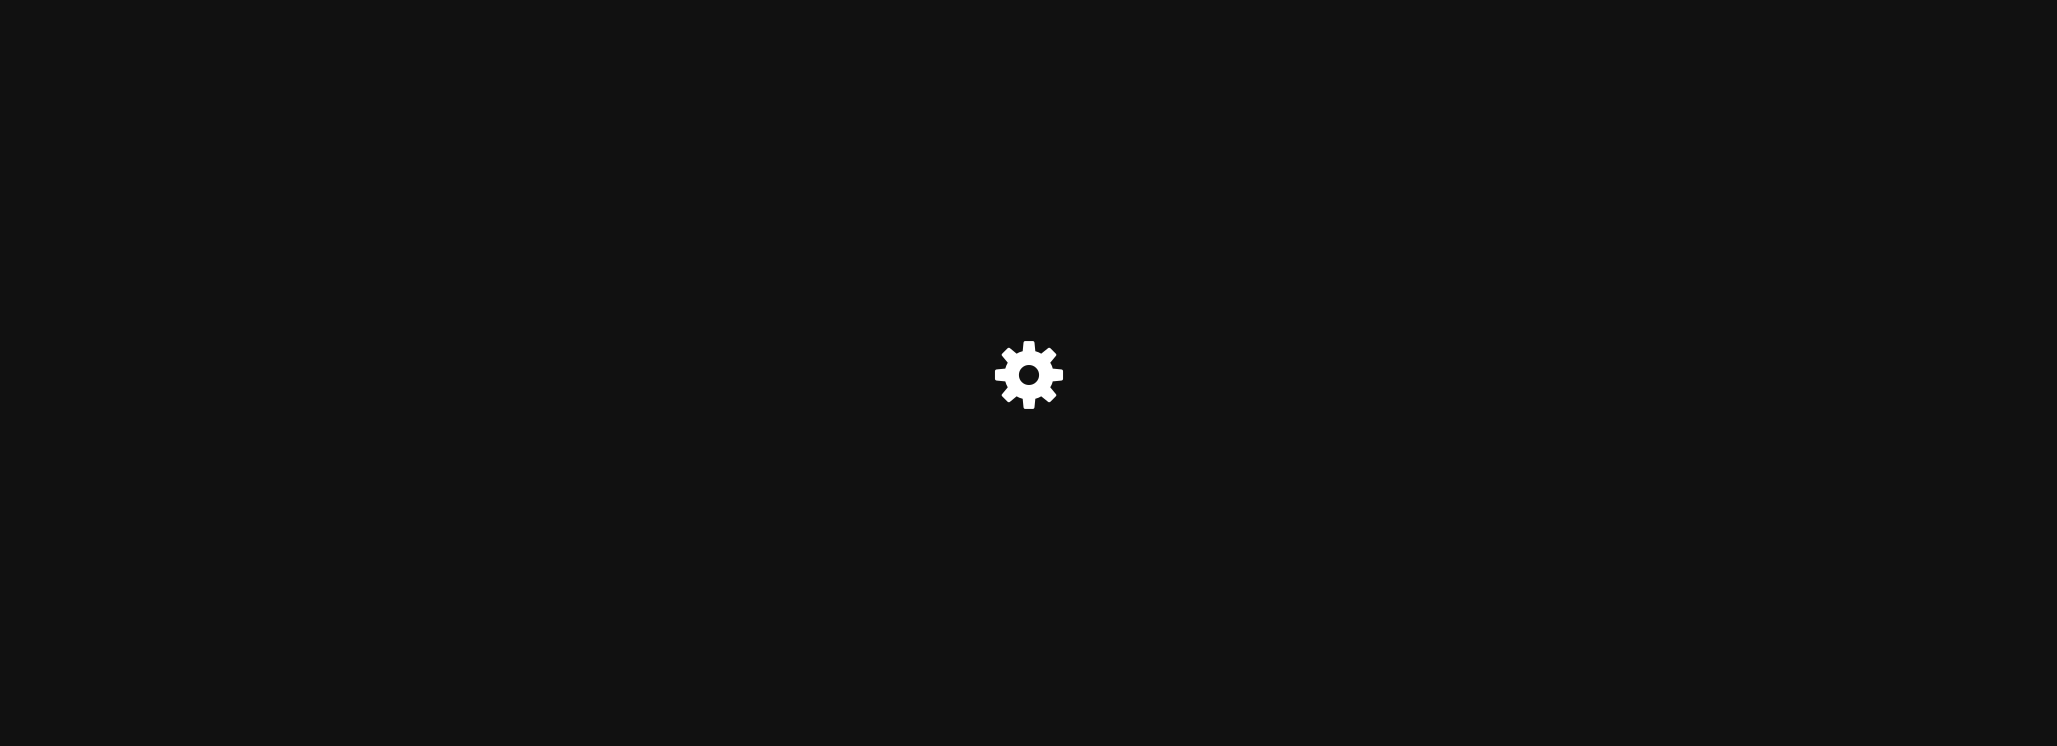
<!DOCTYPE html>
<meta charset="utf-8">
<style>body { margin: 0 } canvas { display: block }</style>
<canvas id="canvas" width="2057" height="746"></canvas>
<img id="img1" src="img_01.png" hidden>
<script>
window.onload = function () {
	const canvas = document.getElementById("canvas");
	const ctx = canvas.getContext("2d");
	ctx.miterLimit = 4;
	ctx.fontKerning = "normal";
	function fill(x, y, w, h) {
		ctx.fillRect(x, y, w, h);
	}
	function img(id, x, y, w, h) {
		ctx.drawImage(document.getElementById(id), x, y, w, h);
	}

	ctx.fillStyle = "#111111";
	fill(0, 0, 2057, 746);
	img("img1", 994, 341, 70, 68);
};
</script>
